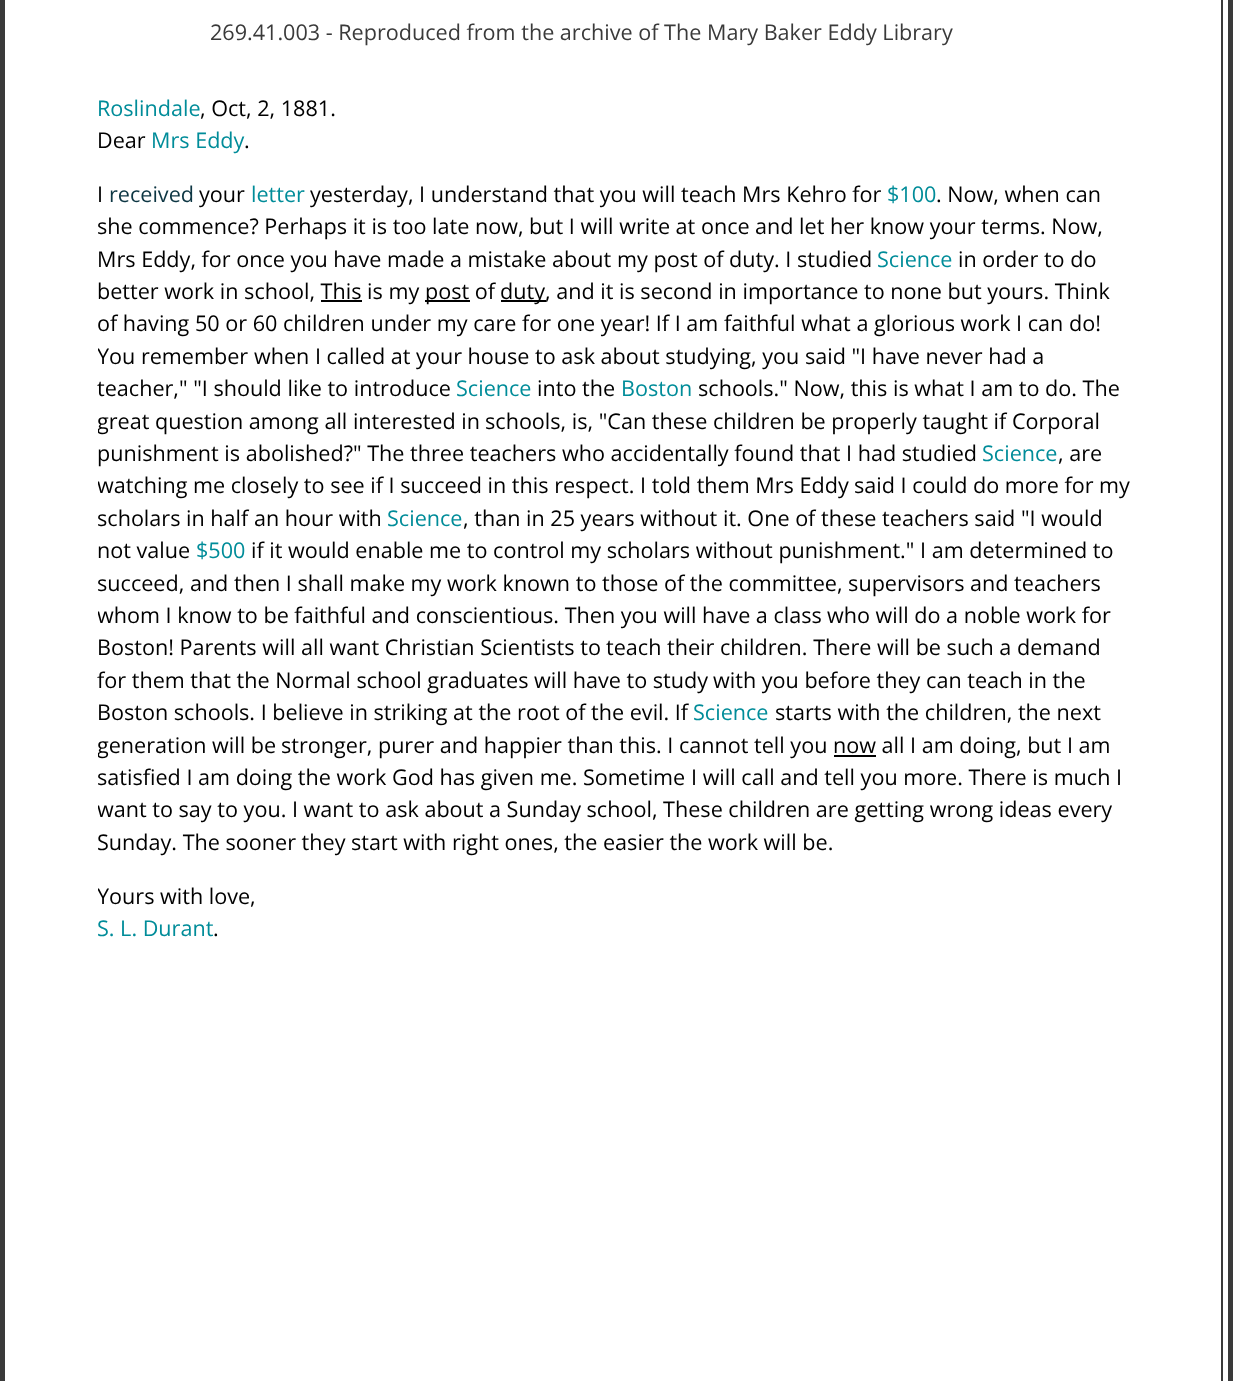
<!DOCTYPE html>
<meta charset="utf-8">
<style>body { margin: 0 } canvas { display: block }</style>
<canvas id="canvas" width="1233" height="1381"></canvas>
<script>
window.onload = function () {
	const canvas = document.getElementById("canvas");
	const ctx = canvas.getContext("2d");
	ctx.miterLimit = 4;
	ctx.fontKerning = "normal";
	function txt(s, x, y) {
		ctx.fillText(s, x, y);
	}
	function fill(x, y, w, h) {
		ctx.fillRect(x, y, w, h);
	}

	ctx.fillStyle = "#FFFFFF";
	fill(0, 0, 1233, 1381);
	ctx.strokeStyle = "#3A3A3A";
	ctx.lineWidth = 5;
	ctx.strokeRect(2.5, -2.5, 1228, 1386);
	ctx.fillStyle = "#000000";
	fill(425, 300, 45, 2);
	fill(501, 300, 45, 2);
	fill(321, 300, 41, 2);
	fill(834, 755, 42, 2);
	ctx.fillStyle = "#3A3A3A";
	fill(1221, 0, 2, 1381);
	ctx.font = "21.6px Open Sans";
	txt("269.41.003 - Reproduced from the archive of The Mary Baker Eddy Library", 210, 40);
	ctx.fillStyle = "#008C99";
	txt("Roslindale", 97, 116);
	ctx.fillStyle = "#000000";
	txt(", Oct, 2, 1881.", 200, 116);
	txt("Dear", 97, 148);
	ctx.fillStyle = "#008C99";
	txt("Mrs Eddy", 151, 148);
	ctx.fillStyle = "#000000";
	txt(".", 244, 148);
	txt("I", 97, 202);
	ctx.fillStyle = "#0D3643";
	txt("received", 109, 202);
	ctx.fillStyle = "#000000";
	txt("your", 199, 202);
	ctx.fillStyle = "#008C99";
	txt("letter", 251, 202);
	ctx.fillStyle = "#000000";
	txt("yesterday, I understand that you will teach Mrs Kehro for", 310, 202);
	ctx.fillStyle = "#008C99";
	txt("$100", 887, 202);
	ctx.fillStyle = "#000000";
	txt(". Now, when can", 936, 202);
	txt("she commence? Perhaps it is too late now, but I will write at once", 97, 234);
	txt("and let her know your terms. Now,", 755, 234);
	txt("Mrs Eddy, for once you have made a mistake about", 97, 267);
	txt("my post of duty. I studied", 617, 267);
	ctx.fillStyle = "#008C99";
	txt("Science", 877, 267);
	ctx.fillStyle = "#000000";
	txt("in order to do", 958, 267);
	txt("better work in school, This is my", 97, 299);
	txt("post of", 425, 299);
	txt("duty, and it is second in importance to none but yours. Think", 500, 299);
	txt("of having 50 or 60 children under my care for one year! If I am faithful what a glorious work I can do!", 97, 331);
	ctx.save();
	ctx.beginPath();
	ctx.rect(98, 9, 1036, 936);
	ctx.clip();
	txt("You remember", 97, 364);
	ctx.restore();
	txt("when I called at your house to ask about studying, you said \"I have never had a", 254, 364);
	txt("teacher,\" \"I should like to introduce", 97, 396);
	ctx.fillStyle = "#008C99";
	txt("Science", 456, 396);
	ctx.fillStyle = "#000000";
	txt("into the", 537, 396);
	ctx.fillStyle = "#008C99";
	txt("Boston", 621, 396);
	ctx.fillStyle = "#000000";
	txt("schools.\" Now, this is what I am to do. The", 698, 396);
	ctx.save();
	ctx.beginPath();
	ctx.rect(98, 9, 1036, 936);
	ctx.clip();
	txt("great question among all interested in", 97, 429);
	ctx.restore();
	txt("schools, is, \"Can these children be properly taught if Corporal", 485, 429);
	txt("punishment is abolished?\" The three teachers who accidentally found that I had studied", 97, 461);
	ctx.fillStyle = "#008C99";
	txt("Science", 982, 461);
	ctx.fillStyle = "#000000";
	txt(", are", 1058, 461);
	ctx.save();
	ctx.beginPath();
	ctx.rect(98, 9, 1036, 936);
	ctx.clip();
	txt("watching me closely to see if I succeed in this respect. I told them Mrs Eddy", 97, 493);
	ctx.restore();
	txt("said I could do more for my", 854, 493);
	txt("scholars in half an hour with", 97, 526);
	ctx.fillStyle = "#008C99";
	txt("Science", 387, 526);
	ctx.fillStyle = "#000000";
	txt(", than in 25 years without it. One of these teachers said \"I would", 463, 526);
	txt("not value", 97, 558);
	ctx.fillStyle = "#008C99";
	txt("$500", 196, 558);
	ctx.fillStyle = "#000000";
	txt("if it would enable me to control my scholars without punishment.\" I am determined to", 251, 558);
	txt("succeed, and then I shall make my work known to those of the committee, supervisors and teachers", 97, 591);
	ctx.save();
	ctx.beginPath();
	ctx.rect(98, 9, 1036, 936);
	ctx.clip();
	txt("whom I know to be faithful and conscientious. Then you will have a class", 97, 623);
	ctx.restore();
	txt("who will do a noble work for", 827, 623);
	txt("Boston! Parents will all want Christian Scientists to", 97, 655);
	txt("teach their children. There will be such a demand", 606, 655);
	txt("for them that the Normal school graduates will have to study", 97, 688);
	txt("with you before they can teach in the", 713, 688);
	txt("Boston schools. I believe in striking at the root of the evil. If", 97, 720);
	ctx.fillStyle = "#008C99";
	txt("Science", 693, 720);
	ctx.fillStyle = "#000000";
	txt("starts with the children, the next", 775, 720);
	ctx.save();
	ctx.beginPath();
	ctx.rect(98, 9, 1036, 936);
	ctx.clip();
	txt("generation will be", 97, 753);
	ctx.restore();
	txt("stronger, purer and happier than this. I cannot tell you", 281, 753);
	txt("now all I am doing, but I am", 833, 753);
	txt("satisfied I am doing the work God has given me. Sometime", 97, 785);
	txt("I will call and tell you more. There is much I", 691, 785);
	ctx.save();
	ctx.beginPath();
	ctx.rect(98, 9, 1036, 936);
	ctx.clip();
	txt("want to say to you. I want to ask about", 97, 817);
	ctx.restore();
	txt("a Sunday school, These children are getting wrong ideas every", 489, 817);
	txt("Sunday. The sooner they start with right ones, the easier the work will be.", 97, 850);
	ctx.save();
	ctx.beginPath();
	ctx.rect(98, 9, 1036, 936);
	ctx.clip();
	txt("Yours with love,", 97, 904);
	ctx.restore();
	ctx.fillStyle = "#008C99";
	txt("S. L. Durant", 97, 936);
	ctx.fillStyle = "#000000";
	txt(".", 213, 936);
};
</script>
